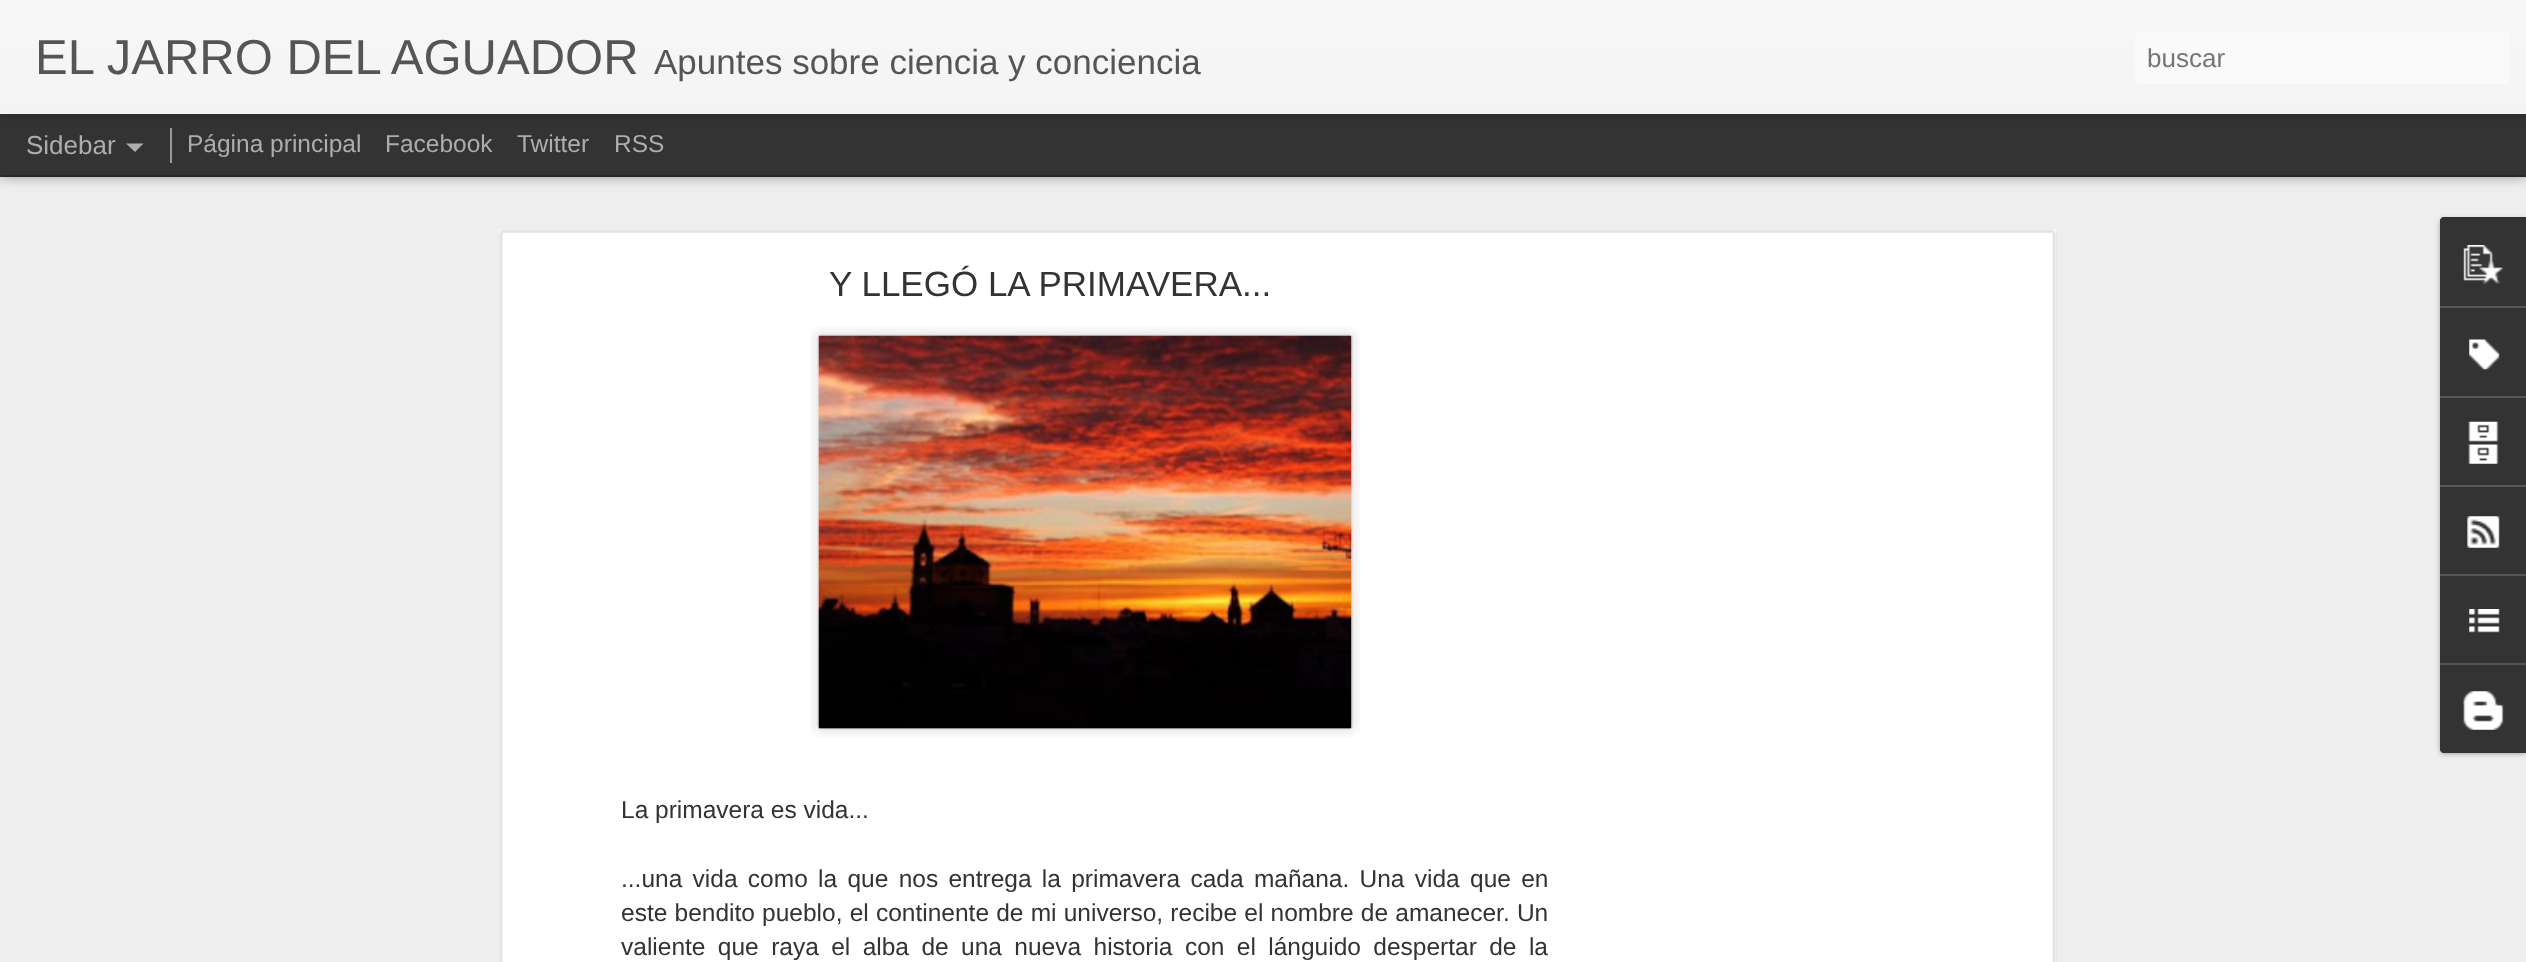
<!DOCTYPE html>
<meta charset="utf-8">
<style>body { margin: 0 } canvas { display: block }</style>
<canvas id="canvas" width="2526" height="962"></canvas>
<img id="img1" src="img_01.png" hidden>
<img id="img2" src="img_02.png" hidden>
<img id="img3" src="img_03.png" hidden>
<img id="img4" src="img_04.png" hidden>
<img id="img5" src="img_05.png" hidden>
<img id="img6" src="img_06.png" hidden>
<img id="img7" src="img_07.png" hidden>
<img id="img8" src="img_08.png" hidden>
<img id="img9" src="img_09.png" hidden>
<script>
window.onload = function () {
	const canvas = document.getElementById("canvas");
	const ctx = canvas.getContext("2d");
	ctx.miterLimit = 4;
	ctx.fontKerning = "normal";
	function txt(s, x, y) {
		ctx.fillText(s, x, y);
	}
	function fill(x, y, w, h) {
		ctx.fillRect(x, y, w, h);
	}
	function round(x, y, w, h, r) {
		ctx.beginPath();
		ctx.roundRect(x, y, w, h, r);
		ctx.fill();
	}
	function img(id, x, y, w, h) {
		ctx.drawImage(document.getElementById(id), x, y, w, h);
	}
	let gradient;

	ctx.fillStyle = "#333333";
	fill(0, 0, 2526, 962);
	ctx.fillStyle = "#EEEEEE";
	fill(0, 177, 2526, 785);
	ctx.fillStyle = "rgba(0, 0, 0, 0.5)";
	ctx.filter = "blur(7px)";
	ctx.beginPath();
	ctx.rect(0, 114, 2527, 61);
	ctx.fill();
	ctx.filter = "none";
	ctx.fillStyle = "#333333";
	fill(0, 114, 2526, 61);
	ctx.fillStyle = "#999999";
	fill(170, 128, 2, 35);
	ctx.fillStyle = "rgba(0, 0, 0, 0.3)";
	ctx.filter = "blur(4.5px)";
	ctx.beginPath();
	ctx.rect(0, 0, 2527, 114);
	ctx.fill();
	ctx.filter = "none";
	gradient = ctx.createLinearGradient(0, 0, 0, 114);
	gradient.addColorStop(0, "#F7F7F7");
	gradient.addColorStop(1, "#F4F4F4");
	ctx.fillStyle = gradient;
	fill(0, 0, 2526, 114);
	ctx.fillStyle = "#FAFAFA";
	round(2135, 32, 375, 52, 5);
	ctx.fillStyle = "#ADADAD";
	ctx.beginPath();
	ctx.moveTo(126, 143.5);
	ctx.lineTo(143.5, 143.5);
	ctx.lineTo(135, 152);
	ctx.closePath();
	ctx.fill();
	ctx.fillStyle = "#FFFFFF";
	fill(499, 229, 1557, 733);
	img("img1", 499, 229, 1558, 733);
	img("img2", 810, 327, 550, 410);
	img("img3", 817, 334, 536, 396);
	ctx.fillStyle = "rgba(0, 0, 0, 0.3)";
	ctx.filter = "blur(2.5px)";
	ctx.beginPath();
	ctx.roundRect(2440, 219, 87, 535, 4);
	ctx.fill();
	ctx.filter = "none";
	ctx.fillStyle = "#333333";
	ctx.beginPath();
	ctx.moveTo(2444, 217);
	ctx.lineTo(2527, 217);
	ctx.lineTo(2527, 753);
	ctx.lineTo(2444, 753);
	ctx.bezierCurveTo(2442, 753, 2440, 751, 2440, 749);
	ctx.lineTo(2440, 221);
	ctx.bezierCurveTo(2440, 219, 2442, 217, 2444, 217);
	ctx.closePath();
	ctx.fill();
	ctx.beginPath();
	ctx.moveTo(2444, 217);
	ctx.lineTo(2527, 217);
	ctx.lineTo(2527, 306);
	ctx.lineTo(2440, 306);
	ctx.lineTo(2440, 221);
	ctx.bezierCurveTo(2440, 219, 2442, 217, 2444, 217);
	ctx.closePath();
	ctx.fill();
	img("img4", 2463, 245, 41, 39);
	ctx.fillStyle = "#585858";
	fill(2440, 306, 86, 2);
	img("img5", 2469, 339, 31, 31);
	fill(2440, 396, 86, 2);
	img("img6", 2468, 421, 31, 43);
	fill(2440, 485, 86, 2);
	img("img7", 2467, 516, 33, 32);
	fill(2440, 574, 86, 2);
	img("img8", 2469, 609, 31, 24);
	ctx.fillStyle = "#333333";
	ctx.beginPath();
	ctx.moveTo(2440, 663);
	ctx.lineTo(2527, 663);
	ctx.lineTo(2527, 753);
	ctx.lineTo(2444, 753);
	ctx.bezierCurveTo(2442, 753, 2440, 751, 2440, 749);
	ctx.closePath();
	ctx.fill();
	ctx.fillStyle = "#585858";
	fill(2440, 663, 86, 2);
	img("img9", 2462, 691, 42, 39);
	ctx.font = "49px Liberation Sans";
	ctx.fillStyle = "#555555";
	txt("EL JARRO DEL AGUADOR", 35, 74);
	ctx.font = "35px Liberation Sans";
	txt("Apuntes sobre ciencia y conciencia", 654, 74);
	ctx.font = "26px Liberation Sans";
	ctx.fillStyle = "#757575";
	txt("buscar", 2147, 67);
	ctx.fillStyle = "#ADADAD";
	txt("Sidebar", 26, 154);
	ctx.font = "24.5px Liberation Sans";
	txt("Página principal", 187, 152);
	txt("Facebook", 385, 152);
	txt("Twitter", 517, 152);
	txt("RSS", 614, 152);
	ctx.font = "35px Liberation Sans";
	ctx.fillStyle = "#333333";
	txt("Y LLEGÓ LA PRIMAVERA...", 829, 296);
	ctx.font = "24.5px Liberation Sans";
	txt("La primavera es vida...", 621, 818);
	ctx.wordSpacing = "3.5px";
	txt("...una vida como la que nos entrega la primavera cada mañana. Una vida que en", 621, 887);
	ctx.wordSpacing = "0.4px";
	txt("este bendito pueblo, el continente de mi universo, recibe el nombre de amanecer. Un", 621, 921);
	ctx.wordSpacing = "5.6px";
	txt("valiente que raya el alba de una nueva historia con el lánguido despertar de la", 621, 955);
};
</script>
